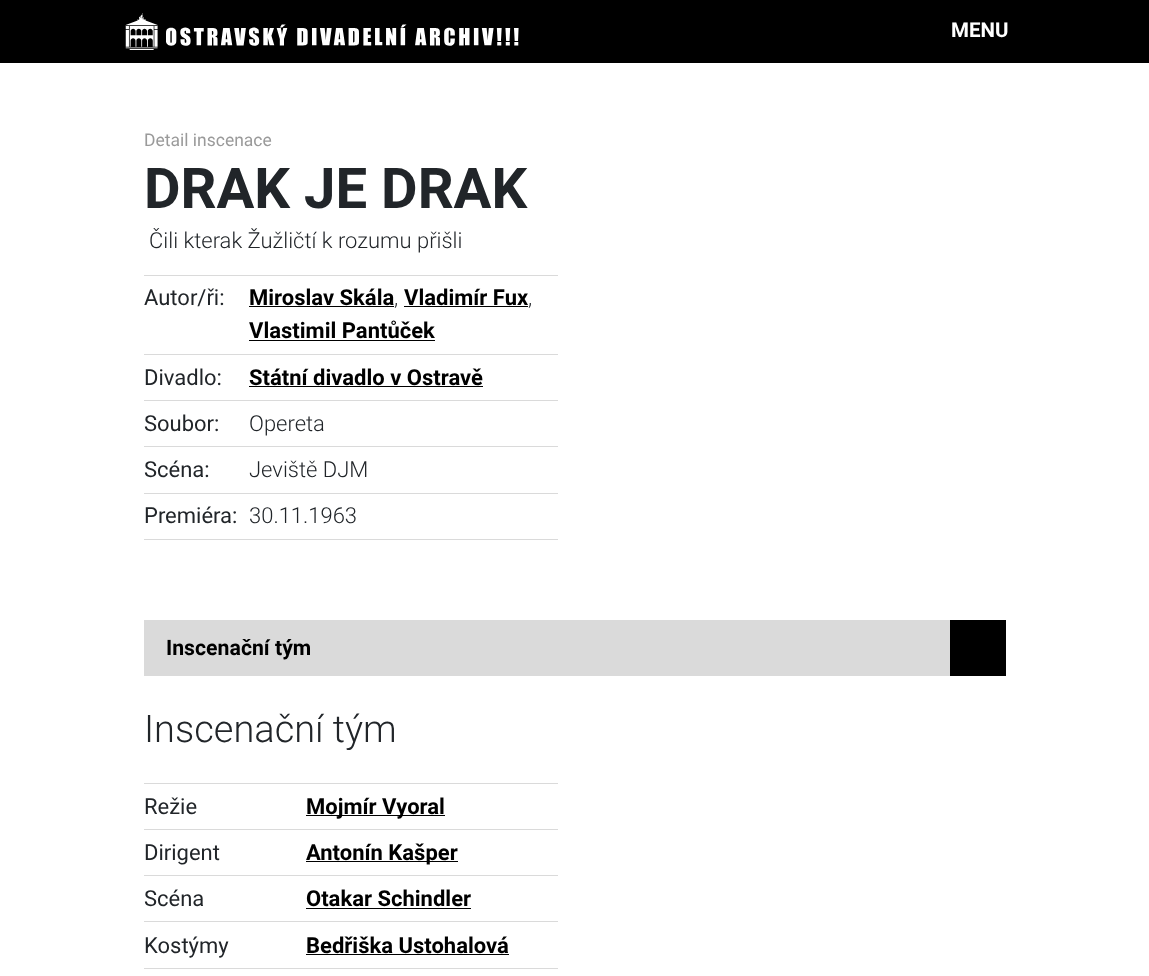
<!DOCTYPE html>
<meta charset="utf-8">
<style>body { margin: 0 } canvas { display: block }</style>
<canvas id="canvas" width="1149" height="976"></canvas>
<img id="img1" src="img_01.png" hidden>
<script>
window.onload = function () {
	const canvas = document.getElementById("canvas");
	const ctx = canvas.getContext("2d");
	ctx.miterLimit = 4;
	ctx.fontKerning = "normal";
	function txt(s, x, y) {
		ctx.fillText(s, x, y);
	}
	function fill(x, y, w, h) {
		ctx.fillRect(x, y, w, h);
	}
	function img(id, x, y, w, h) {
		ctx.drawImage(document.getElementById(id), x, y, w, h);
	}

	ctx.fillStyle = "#FFFFFF";
	fill(0, 0, 1149, 976);
	ctx.fillStyle = "#000000";
	fill(0, 0, 1149, 63);
	img("img1", 125, 13, 394, 37);
	ctx.fillStyle = "#DADADA";
	fill(144, 275, 414, 1);
	ctx.fillStyle = "#000000";
	fill(249, 306, 145, 1);
	fill(404, 306, 124, 1);
	fill(249, 340, 186, 1);
	ctx.fillStyle = "#DADADA";
	fill(144, 354, 414, 1);
	ctx.fillStyle = "#000000";
	fill(249, 386, 234, 1);
	ctx.fillStyle = "#DADADA";
	fill(144, 400, 414, 1);
	fill(144, 446, 414, 1);
	fill(144, 493, 414, 1);
	fill(144, 539, 414, 1);
	fill(144, 620, 806, 56);
	ctx.fillStyle = "#000000";
	fill(950, 620, 56, 56);
	ctx.fillStyle = "#DADADA";
	fill(144, 783, 414, 1);
	ctx.fillStyle = "#000000";
	fill(306, 815, 139, 1);
	ctx.fillStyle = "#DADADA";
	fill(144, 829, 414, 1);
	ctx.fillStyle = "#000000";
	fill(306, 861, 152, 1);
	ctx.fillStyle = "#DADADA";
	fill(144, 875, 414, 1);
	ctx.fillStyle = "#000000";
	fill(306, 908, 165, 1);
	ctx.fillStyle = "#DADADA";
	fill(144, 921, 414, 1);
	ctx.fillStyle = "#000000";
	fill(306, 954, 203, 1);
	ctx.fillStyle = "#DADADA";
	fill(144, 968, 414, 1);
	ctx.font = "bold 20.5px Roboto";
	ctx.fillStyle = "#FFFFFF";
	txt("MENU", 951, 37);
	ctx.font = "17.5px Roboto";
	ctx.fillStyle = "#9A9A9A";
	txt("Detail inscenace", 144, 146);
	ctx.font = "bold 56.25px Roboto";
	ctx.fillStyle = "#212529";
	txt("DRAK JE DRAK", 144, 208);
	ctx.font = "300 22px Roboto";
	txt("Čili kterak Žužličtí k rozumu přišli", 149, 248);
	ctx.font = "22px Roboto";
	txt("Autor/ři:", 144, 305);
	ctx.font = "bold 22px Roboto";
	ctx.fillStyle = "#000000";
	txt("Miroslav Skála", 249, 305);
	ctx.font = "300 22px Roboto";
	ctx.fillStyle = "#212529";
	txt(",", 394, 305);
	ctx.font = "bold 22px Roboto";
	ctx.fillStyle = "#000000";
	txt("Vladimír Fux", 404, 305);
	ctx.font = "300 22px Roboto";
	ctx.fillStyle = "#212529";
	txt(",", 528, 305);
	ctx.font = "bold 22px Roboto";
	ctx.fillStyle = "#000000";
	txt("Vlastimil Pantůček", 249, 338);
	ctx.font = "22px Roboto";
	ctx.fillStyle = "#212529";
	txt("Divadlo:", 144, 385);
	ctx.font = "bold 22px Roboto";
	ctx.fillStyle = "#000000";
	txt("Státní divadlo v Ostravě", 249, 385);
	ctx.font = "22px Roboto";
	ctx.fillStyle = "#212529";
	txt("Soubor:", 144, 431);
	ctx.font = "300 22px Roboto";
	txt("Opereta", 249, 431);
	ctx.font = "22px Roboto";
	txt("Scéna:", 144, 477);
	ctx.font = "300 22px Roboto";
	txt("Jeviště DJM", 249, 477);
	ctx.font = "22px Roboto";
	txt("Premiéra:", 144, 523);
	ctx.font = "300 22px Roboto";
	txt("30.11.1963", 249, 523);
	ctx.font = "bold 21.25px Roboto";
	ctx.fillStyle = "#000000";
	txt("Inscenační tým", 166, 655);
	ctx.font = "300 38px Roboto";
	ctx.fillStyle = "#212529";
	txt("Inscenační tým", 144, 742);
	ctx.font = "22px Roboto";
	txt("Režie", 144, 814);
	ctx.font = "bold 22px Roboto";
	ctx.fillStyle = "#000000";
	txt("Mojmír Vyoral", 306, 814);
	ctx.font = "22px Roboto";
	ctx.fillStyle = "#212529";
	txt("Dirigent", 144, 860);
	ctx.font = "bold 22px Roboto";
	ctx.fillStyle = "#000000";
	txt("Antonín Kašper", 306, 860);
	ctx.font = "22px Roboto";
	ctx.fillStyle = "#212529";
	txt("Scéna", 144, 906);
	ctx.font = "bold 22px Roboto";
	ctx.fillStyle = "#000000";
	txt("Otakar Schindler", 306, 906);
	ctx.font = "22px Roboto";
	ctx.fillStyle = "#212529";
	txt("Kostýmy", 144, 953);
	ctx.font = "bold 22px Roboto";
	ctx.fillStyle = "#000000";
	txt("Bedřiška Ustohalová", 306, 953);
};
</script>
